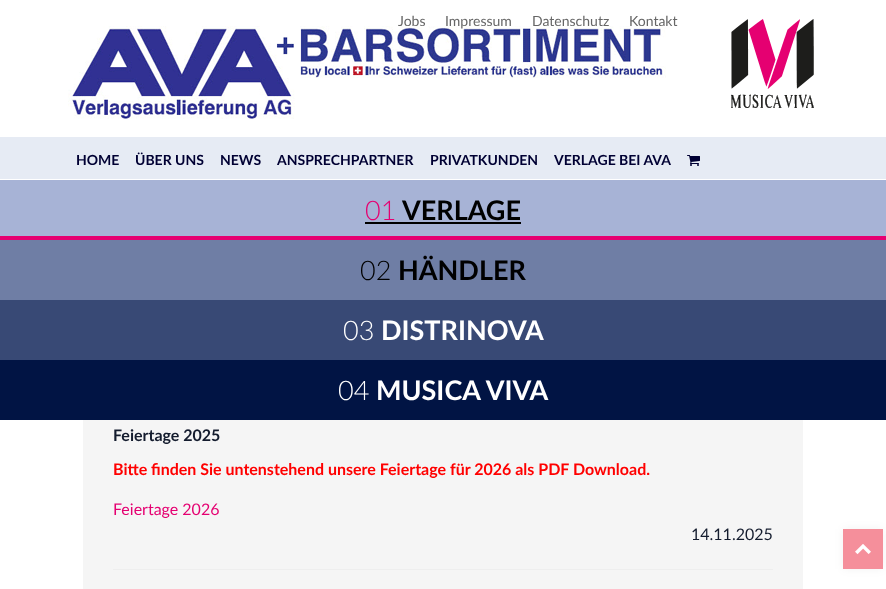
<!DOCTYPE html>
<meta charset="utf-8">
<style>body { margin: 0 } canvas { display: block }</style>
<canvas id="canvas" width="886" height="589"></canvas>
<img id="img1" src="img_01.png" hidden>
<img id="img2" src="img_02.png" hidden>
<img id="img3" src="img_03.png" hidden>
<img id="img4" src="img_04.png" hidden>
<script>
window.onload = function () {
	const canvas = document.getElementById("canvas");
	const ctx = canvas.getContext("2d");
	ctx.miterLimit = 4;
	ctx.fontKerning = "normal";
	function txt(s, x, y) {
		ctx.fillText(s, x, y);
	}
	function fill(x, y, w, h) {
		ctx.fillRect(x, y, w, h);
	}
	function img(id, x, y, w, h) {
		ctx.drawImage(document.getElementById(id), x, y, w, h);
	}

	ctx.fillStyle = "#FFFFFF";
	fill(0, 0, 886, 589);
	ctx.fillStyle = "#E6EBF4";
	fill(0, 137, 886, 42);
	img("img1", 731, 19, 83, 89);
	img("img2", 68, 26, 598, 93);
	img("img3", 687, 155, 13, 11);
	ctx.fillStyle = "#A7B3D6";
	fill(0, 180, 886, 56);
	ctx.fillStyle = "#E50071";
	fill(0, 236, 886, 4);
	ctx.fillStyle = "#000000";
	fill(365, 222, 156, 2);
	ctx.fillStyle = "#6F7EA5";
	fill(0, 240, 886, 60);
	ctx.fillStyle = "#384975";
	fill(0, 300, 886, 60);
	ctx.fillStyle = "#011444";
	fill(0, 360, 886, 60);
	ctx.fillStyle = "#F5F5F5";
	fill(83, 420, 720, 169);
	ctx.fillStyle = "#EEEEEE";
	fill(113, 569, 660, 1);
	ctx.fillStyle = "rgba(0, 0, 0, 0.05)";
	ctx.filter = "blur(5px)";
	ctx.beginPath();
	ctx.rect(843, 529, 40, 40);
	ctx.fill();
	ctx.filter = "none";
	ctx.fillStyle = "#F58F9B";
	fill(843, 529, 40, 40);
	img("img4", 855, 544, 16, 11);
	ctx.font = "14px Lato";
	ctx.fillStyle = "#666666";
	txt("Jobs", 398, 26);
	txt("Impressum", 445, 26);
	txt("Datenschutz", 532, 26);
	txt("Kontakt", 629, 26);
	ctx.font = "bold 14px Lato";
	ctx.fillStyle = "#000033";
	txt("HOME", 76, 165);
	txt("ÜBER UNS", 135, 165);
	txt("NEWS", 220, 165);
	txt("ANSPRECHPARTNER", 277, 165);
	txt("PRIVATKUNDEN", 430, 165);
	txt("VERLAGE BEI AVA", 554, 165);
	ctx.font = "300 27px Lato";
	ctx.fillStyle = "#E50071";
	txt("01", 365, 220);
	ctx.font = "bold 27px Lato";
	ctx.fillStyle = "#000000";
	txt("VERLAGE", 402, 220);
	ctx.font = "300 27px Lato";
	txt("02", 360, 280);
	ctx.font = "bold 27px Lato";
	txt("HÄNDLER", 398, 280);
	ctx.font = "300 27px Lato";
	ctx.fillStyle = "#FFFFFF";
	txt("03", 343, 340);
	ctx.font = "bold 27px Lato";
	txt("DISTRINOVA", 381, 340);
	ctx.font = "300 27px Lato";
	txt("04", 338, 400);
	ctx.font = "bold 27px Lato";
	txt("MUSICA VIVA", 376, 400);
	ctx.font = "bold 16px Lato";
	ctx.fillStyle = "#141C2E";
	txt("Feiertage 2025", 113, 441);
	ctx.fillStyle = "#FF0000";
	txt("Bitte finden Sie untenstehend unsere Feiertage für 2026 als PDF Download.", 113, 475);
	ctx.font = "16px Lato";
	ctx.fillStyle = "#E50071";
	txt("Feiertage 2026", 113, 515);
	ctx.fillStyle = "#141C2E";
	txt("14.11.2025", 691, 540);
};
</script>
